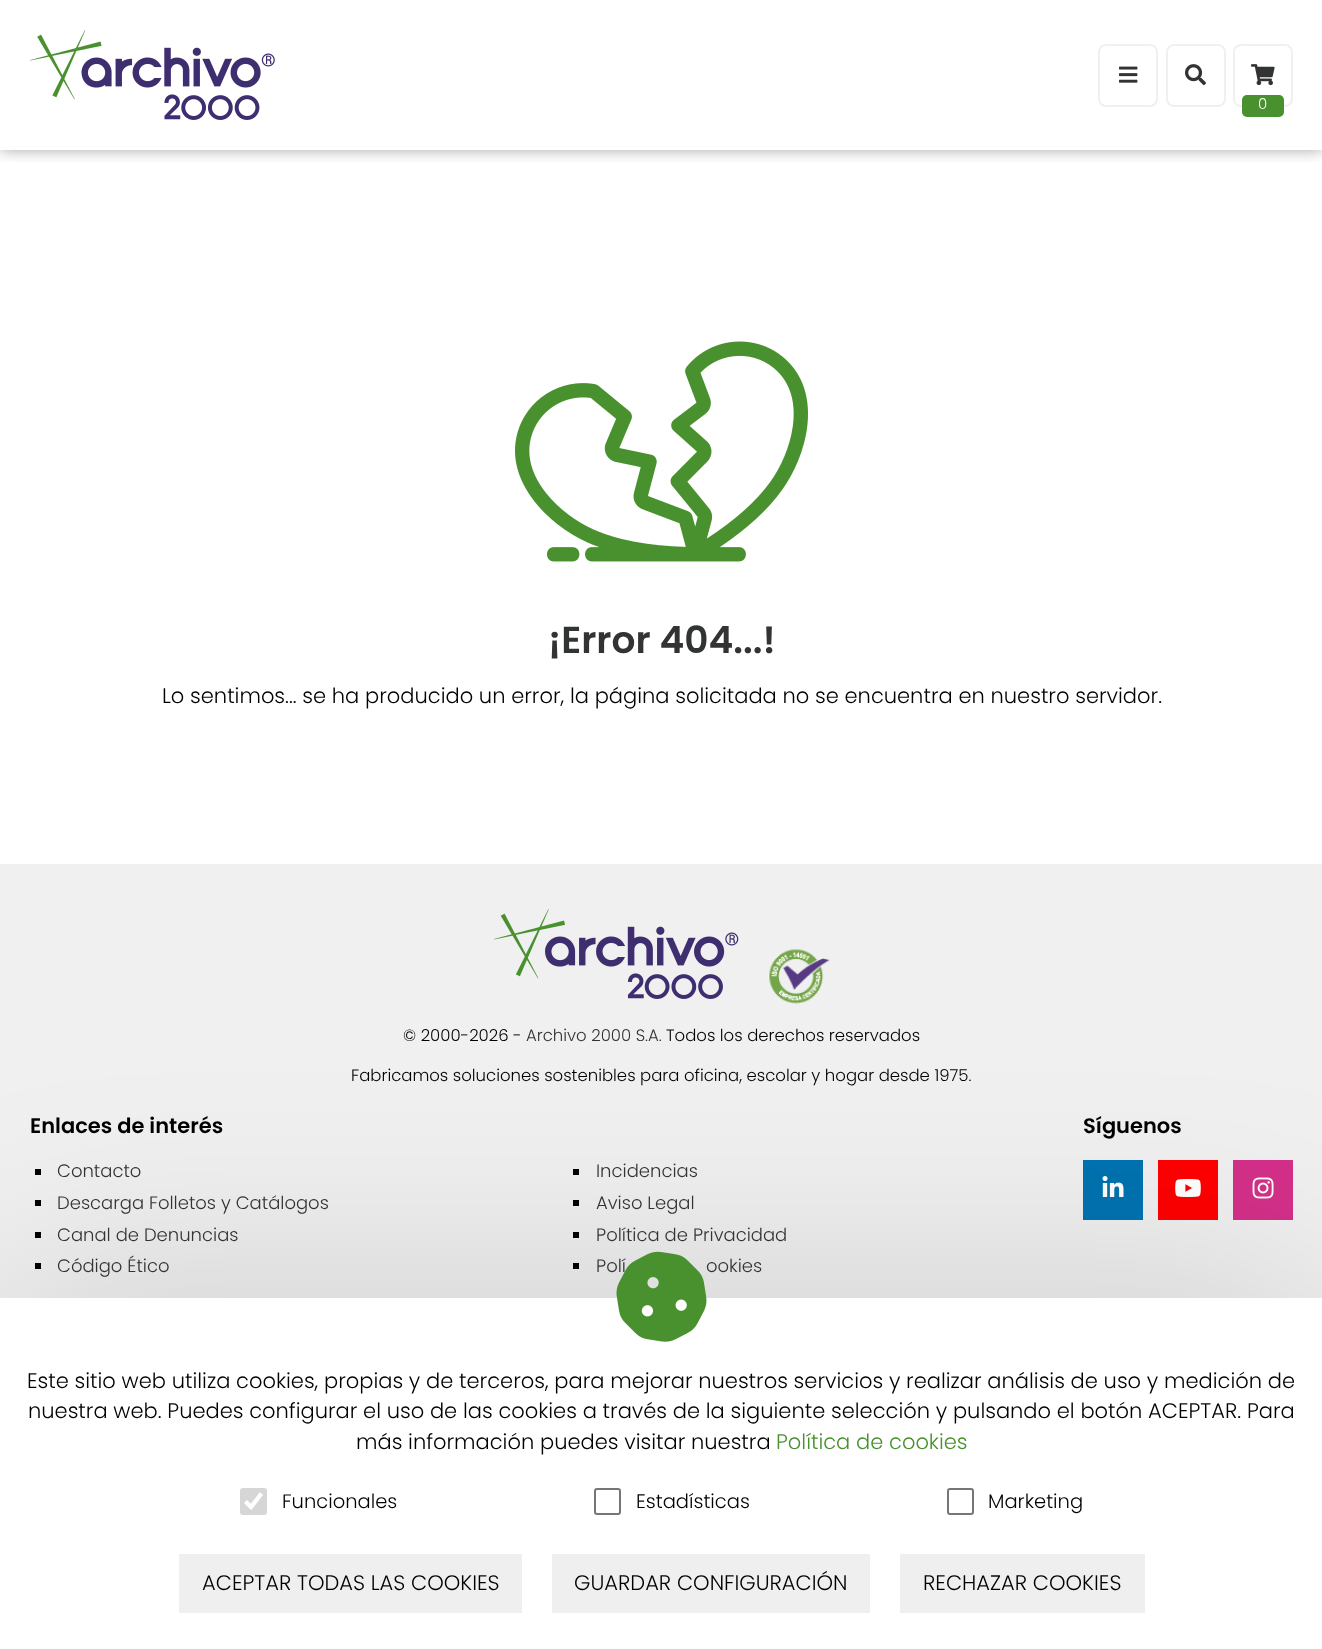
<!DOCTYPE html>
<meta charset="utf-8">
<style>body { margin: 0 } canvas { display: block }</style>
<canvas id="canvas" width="1322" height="1649"></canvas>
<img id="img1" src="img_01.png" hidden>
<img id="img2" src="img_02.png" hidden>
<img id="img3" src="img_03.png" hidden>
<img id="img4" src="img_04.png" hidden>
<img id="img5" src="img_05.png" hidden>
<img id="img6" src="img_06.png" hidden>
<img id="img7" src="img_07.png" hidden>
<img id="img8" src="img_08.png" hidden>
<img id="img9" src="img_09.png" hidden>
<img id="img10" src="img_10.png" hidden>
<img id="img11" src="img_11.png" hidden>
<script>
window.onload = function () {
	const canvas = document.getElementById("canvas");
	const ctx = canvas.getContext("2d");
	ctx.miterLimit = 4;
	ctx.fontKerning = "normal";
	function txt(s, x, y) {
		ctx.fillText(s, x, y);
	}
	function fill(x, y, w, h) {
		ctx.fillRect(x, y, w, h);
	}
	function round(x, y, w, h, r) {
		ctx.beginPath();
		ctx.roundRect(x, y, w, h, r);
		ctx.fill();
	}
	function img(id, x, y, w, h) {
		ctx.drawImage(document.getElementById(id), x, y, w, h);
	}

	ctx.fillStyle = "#FFFFFF";
	fill(0, 0, 1322, 1649);
	ctx.save();
	ctx.beginPath();
	ctx.rect(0, 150, 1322, 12);
	ctx.clip();
	ctx.fillStyle = "rgba(0, 0, 0, 0.35)";
	ctx.filter = "blur(7.5px)";
	ctx.beginPath();
	ctx.rect(0, 0, 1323, 150);
	ctx.fill();
	ctx.filter = "none";
	ctx.restore();
	img("img1", 30, 30, 245, 90);
	ctx.beginPath();
	ctx.roundRect(1099, 45, 58, 61, 7);
	ctx.strokeStyle = "#F0F0F0";
	ctx.lineWidth = 2;
	ctx.stroke();
	img("img2", 1119, 66, 19, 17);
	ctx.beginPath();
	ctx.roundRect(1167, 45, 58, 61, 7);
	ctx.stroke();
	img("img3", 1185, 64, 21, 22);
	ctx.beginPath();
	ctx.roundRect(1234, 45, 58, 61, 7);
	ctx.stroke();
	img("img4", 1251, 64, 24, 22);
	ctx.fillStyle = "#48912E";
	round(1242, 95, 42, 22, 5);
	img("img5", 515, 341, 293, 221);
	ctx.fillStyle = "#F0F0F0";
	fill(0, 864, 1322, 434);
	img("img6", 494, 909, 245, 90);
	img("img7", 769, 949, 61, 55);
	ctx.fillStyle = "#000000";
	fill(35, 1169, 6, 6);
	fill(573, 1169, 6, 6);
	fill(35, 1200, 6, 6);
	fill(573, 1200, 6, 6);
	fill(35, 1232, 6, 6);
	fill(573, 1232, 6, 6);
	fill(35, 1263, 6, 6);
	fill(573, 1263, 6, 6);
	ctx.fillStyle = "#0073B1";
	fill(1083, 1160, 60, 60);
	img("img8", 1102, 1176, 22, 21);
	ctx.fillStyle = "#FF0000";
	fill(1158, 1160, 60, 60);
	img("img9", 1175, 1179, 26, 18);
	ctx.fillStyle = "#D43089";
	fill(1233, 1160, 60, 60);
	img("img10", 1252, 1177, 22, 22);
	ctx.fillStyle = "rgba(0, 0, 0, 0.15)";
	ctx.filter = "blur(112.5px)";
	ctx.beginPath();
	ctx.rect(0, 1298, 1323, 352);
	ctx.fill();
	ctx.filter = "none";
	ctx.fillStyle = "#FFFFFF";
	fill(0, 1298, 1322, 351);
	ctx.fillStyle = "#D6D6D6";
	round(240, 1488, 27, 27, 3);
	ctx.beginPath();
	ctx.moveTo(245.5, 1501.5);
	ctx.lineTo(251, 1507);
	ctx.lineTo(261.5, 1493.5);
	ctx.strokeStyle = "#FFFFFF";
	ctx.lineWidth = 4.3;
	ctx.stroke();
	ctx.beginPath();
	ctx.roundRect(595, 1489, 25, 25, 2);
	ctx.strokeStyle = "#767676";
	ctx.lineWidth = 2;
	ctx.stroke();
	ctx.beginPath();
	ctx.roundRect(948, 1489, 25, 25, 2);
	ctx.stroke();
	ctx.fillStyle = "#EFEFEF";
	fill(179, 1554, 343, 59);
	fill(552, 1554, 318, 59);
	fill(900, 1554, 245, 59);
	ctx.font = "300 15px Poppins";
	ctx.fillStyle = "#FFFFFF";
	txt("0", 1258, 109);
	ctx.font = "600 37.5px Poppins";
	ctx.fillStyle = "#323334";
	txt("¡Error 404...!", 548, 653);
	ctx.font = "300 21px Poppins";
	ctx.fillStyle = "#000000";
	txt("Lo sentimos... se ha producido un error, la página solicitada no se encuentra en nuestro servidor.", 162, 703);
	ctx.font = "300 16.5px Poppins";
	txt("© 2000-2026 -", 403, 1041);
	ctx.fillStyle = "#323334";
	txt("Archivo 2000 S.A.", 526, 1041);
	ctx.fillStyle = "#000000";
	txt("Todos los derechos reservados", 666, 1041);
	txt("Fabricamos soluciones sostenibles para oficina, escolar y hogar desde 1975.", 351, 1081);
	ctx.font = "600 21px Poppins";
	txt("Enlaces de interés", 30, 1133);
	ctx.font = "300 18px Poppins";
	ctx.fillStyle = "#323334";
	txt("Contacto", 57, 1177);
	txt("Incidencias", 596, 1177);
	txt("Descarga Folletos y Catálogos", 57, 1209);
	txt("Aviso Legal", 596, 1209);
	txt("Canal de Denuncias", 57, 1241);
	txt("Política de Privacidad", 596, 1241);
	txt("Código Ético", 57, 1272);
	txt("Polí", 596, 1272);
	txt("ookies", 706, 1272);
	ctx.font = "600 21px Poppins";
	ctx.fillStyle = "#000000";
	txt("Síguenos", 1083, 1133);
	img("img11", 616, 1251, 91, 91);
	ctx.font = "300 21px Poppins";
	txt("Este sitio web utiliza cookies, propias y de terceros, para mejorar nuestros servicios y realizar análisis de uso y medición de", 27, 1388);
	txt("nuestra web. Puedes configurar el uso de las cookies a través de la siguiente selección y pulsando el botón ACEPTAR. Para", 28, 1418);
	txt("más información puedes visitar nuestra", 356, 1449);
	ctx.fillStyle = "#48912E";
	txt("Política de cookies", 776, 1449);
	ctx.font = "300 19.5px Poppins";
	ctx.fillStyle = "#000000";
	txt("Funcionales", 282, 1508);
	txt("Estadísticas", 636, 1508);
	txt("Marketing", 988, 1508);
	ctx.font = "300 21px Poppins";
	txt("ACEPTAR TODAS LAS COOKIES", 202, 1590);
	txt("GUARDAR CONFIGURACIÓN", 574, 1590);
	txt("RECHAZAR COOKIES", 923, 1590);
};
</script>
